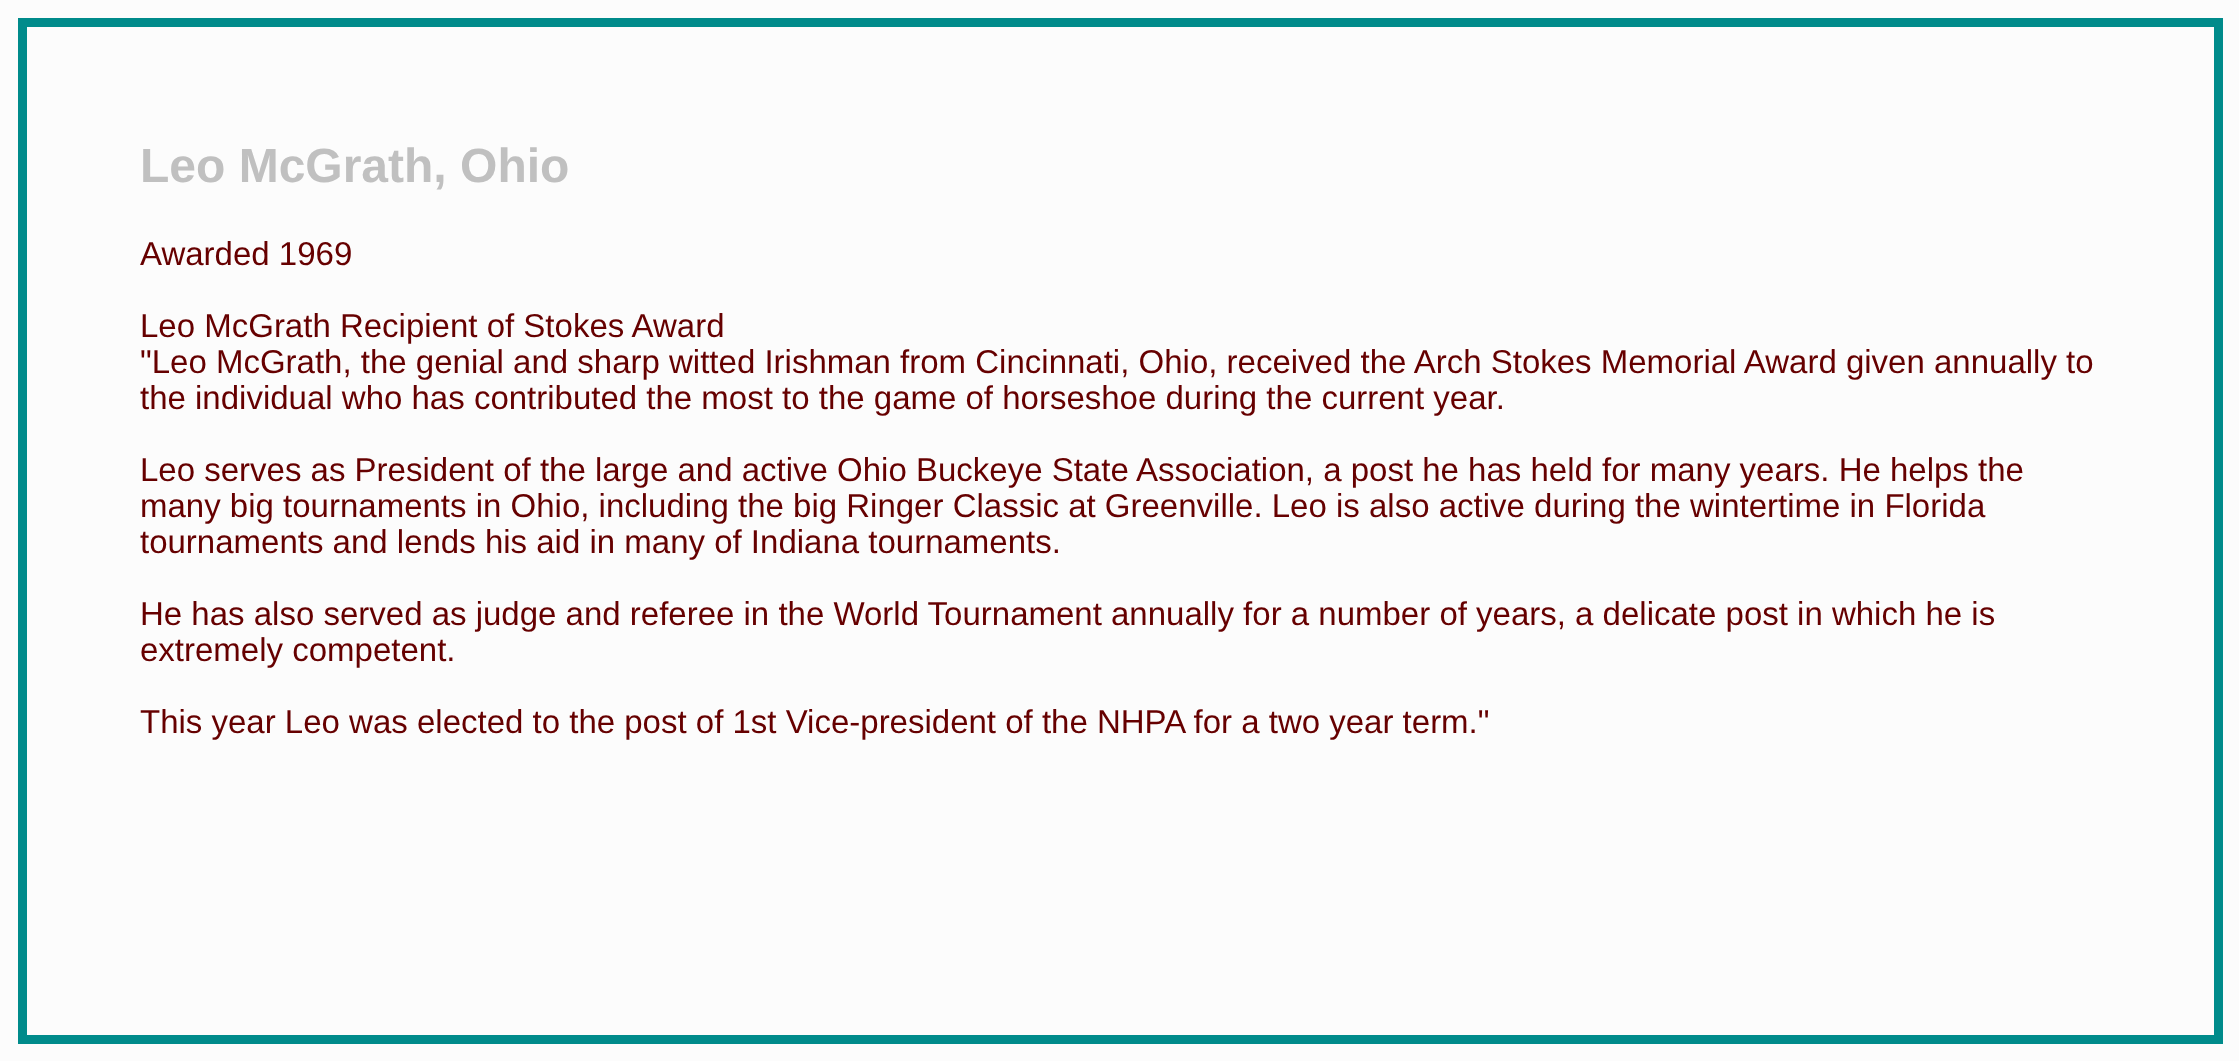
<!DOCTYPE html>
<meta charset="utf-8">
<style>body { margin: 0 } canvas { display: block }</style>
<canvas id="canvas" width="2239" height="1061"></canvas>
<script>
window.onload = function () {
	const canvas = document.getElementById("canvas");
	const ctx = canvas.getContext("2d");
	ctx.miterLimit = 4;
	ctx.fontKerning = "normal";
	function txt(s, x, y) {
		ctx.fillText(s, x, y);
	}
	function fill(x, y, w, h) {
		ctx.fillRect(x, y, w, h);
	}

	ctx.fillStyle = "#FCFCFC";
	fill(0, 0, 2239, 1061);
	ctx.strokeStyle = "#008B8B";
	ctx.lineWidth = 9;
	ctx.strokeRect(22.5, 22.5, 2196, 1017);
	ctx.font = "bold 48px Liberation Sans";
	ctx.fillStyle = "#C0C0C0";
	txt("Leo McGrath, Ohio", 140, 182);
	ctx.font = "33px Liberation Sans";
	ctx.fillStyle = "#660000";
	txt("Awarded 1969", 140, 265);
	txt("Leo McGrath Recipient of Stokes Award", 140, 337);
	txt("\"Leo McGrath, the genial and sharp witted Irishman from Cincinnati, Ohio, received the Arch Stokes Memorial Award given annually to", 140, 373);
	txt("the individual who has contributed the most to the game of horseshoe during the current year.", 140, 409);
	txt("Leo serves as President of the large and active Ohio Buckeye State Association, a post he has held for many years. He helps the", 140, 481);
	txt("many big tournaments in Ohio, including the big Ringer Classic at Greenville. Leo is also active during the wintertime in Florida", 140, 517);
	txt("tournaments and lends his aid in many of Indiana tournaments.", 140, 553);
	txt("He has also served as judge and referee in the World Tournament annually for a number of years, a delicate post in which he is", 140, 625);
	txt("extremely competent.", 140, 661);
	txt("This year Leo was elected to the post of 1st Vice-president of the NHPA for a two year term.\"", 140, 733);
};
</script>
